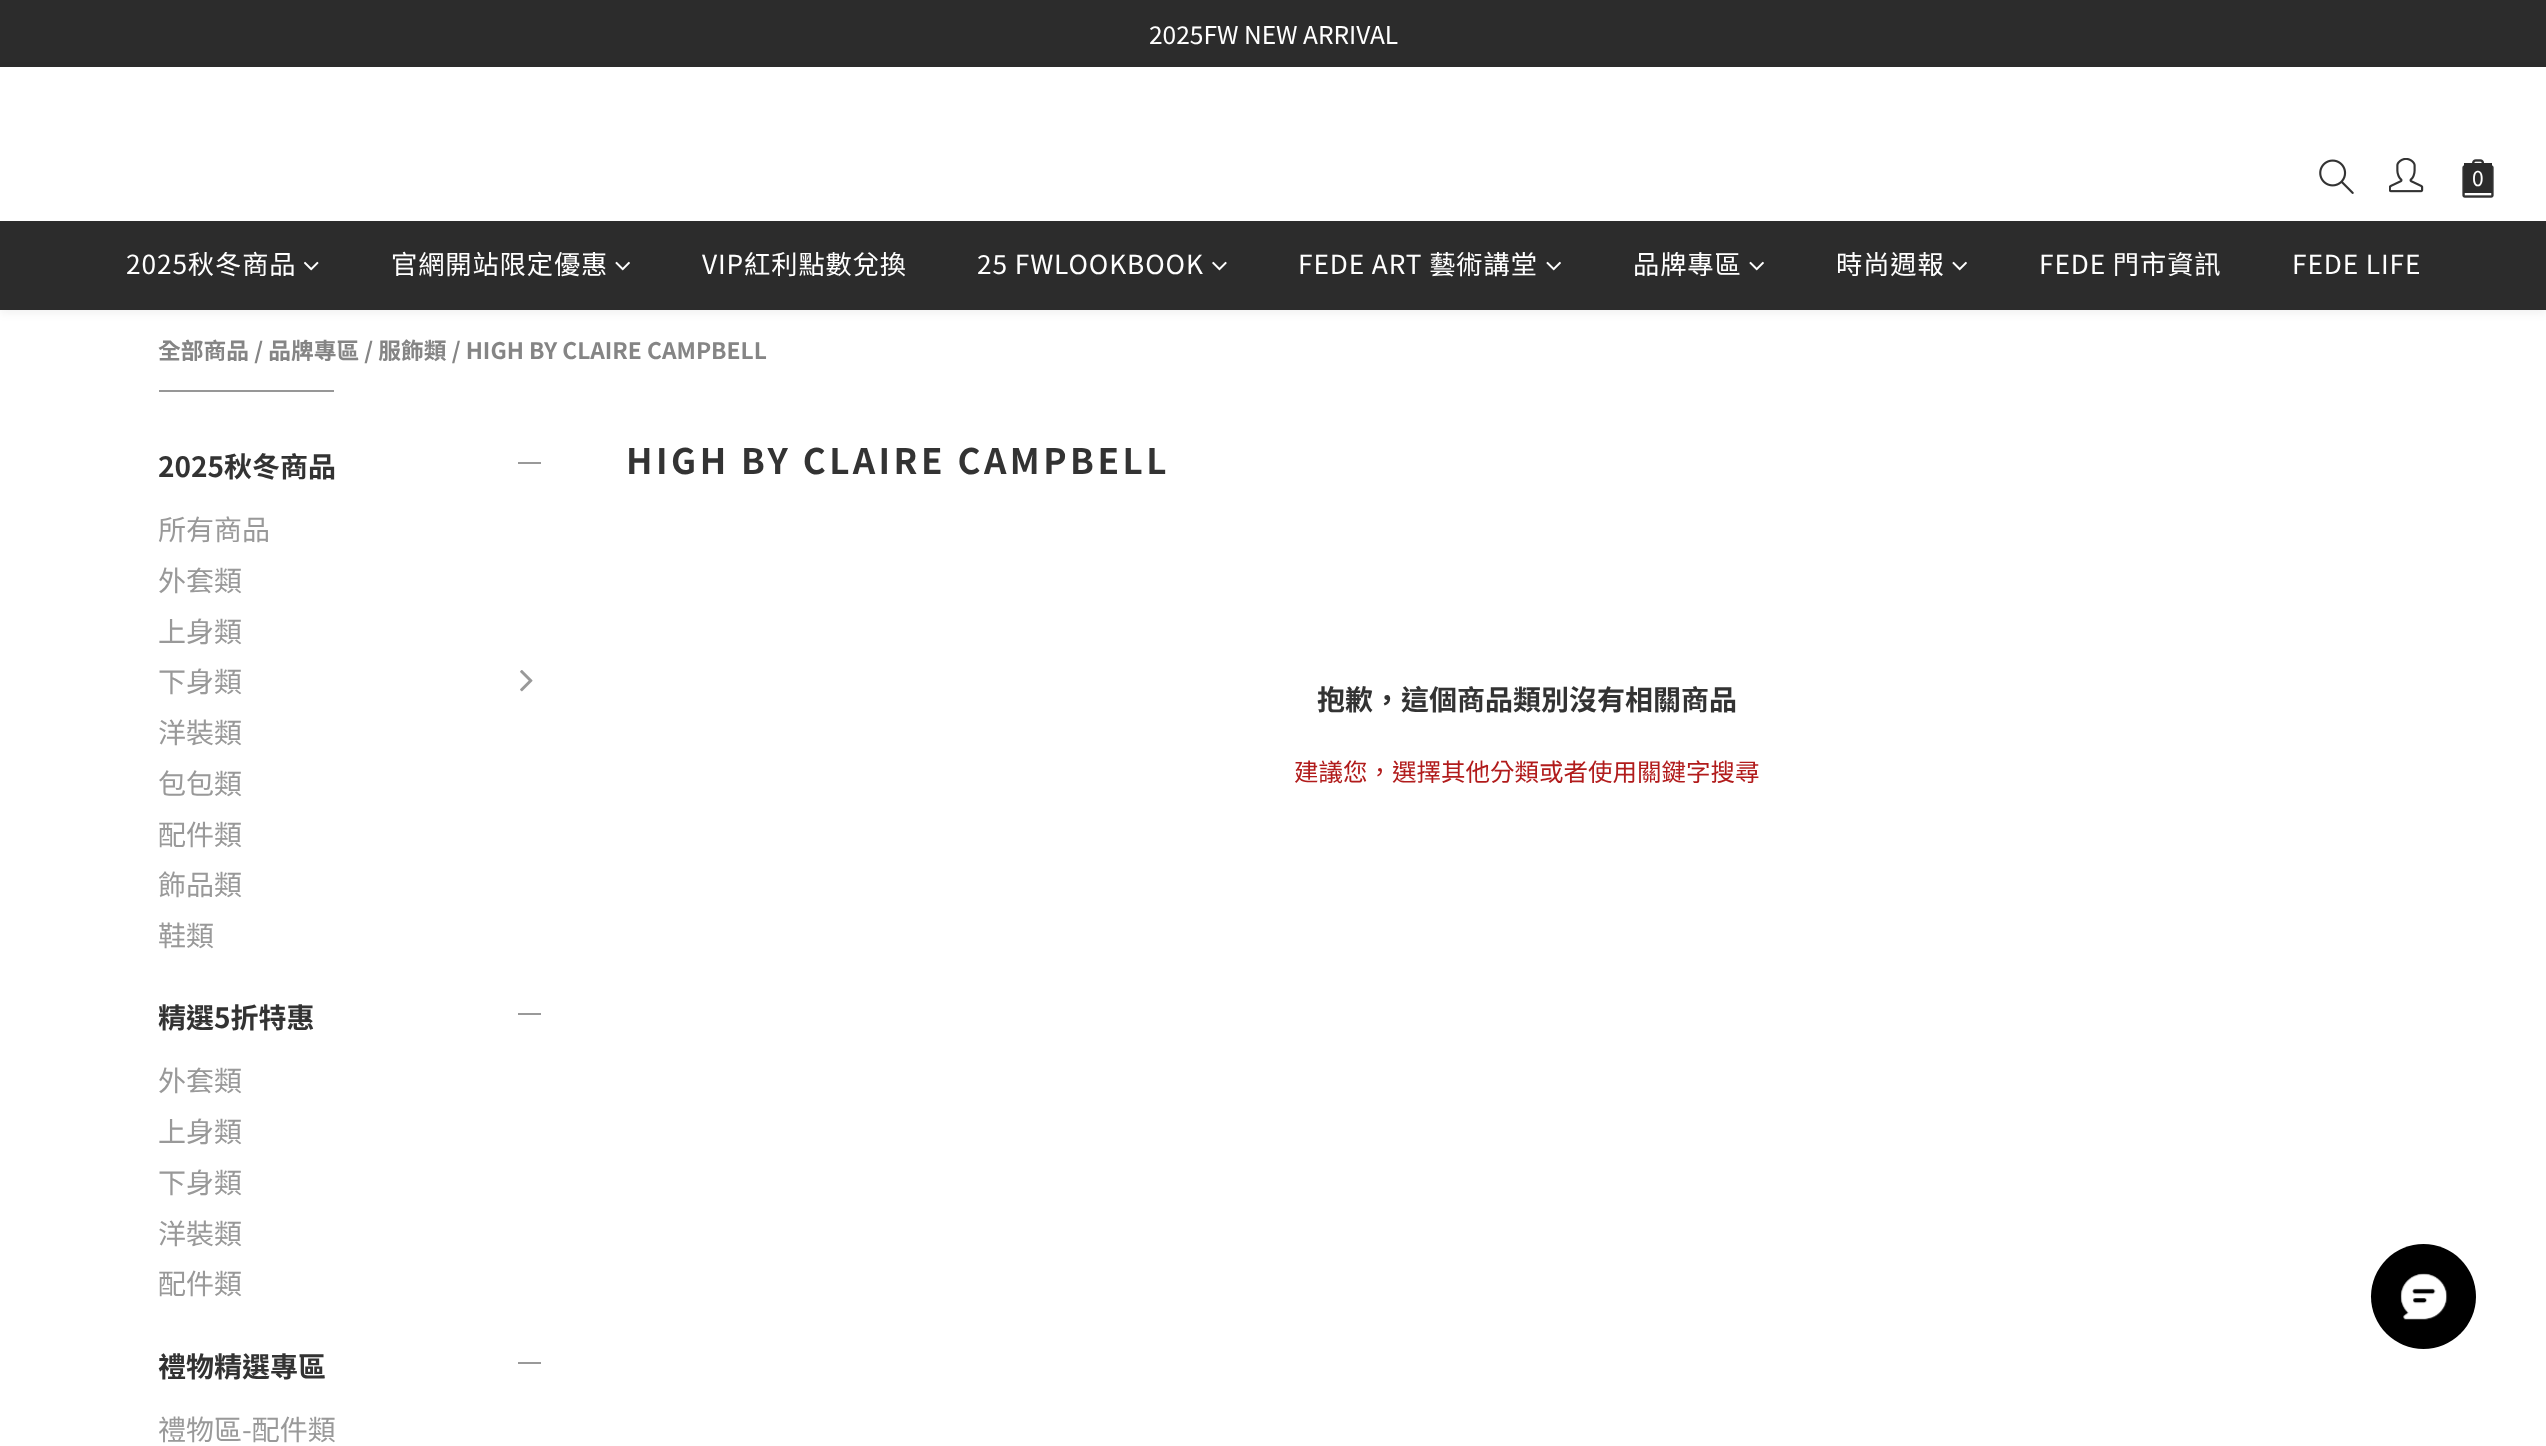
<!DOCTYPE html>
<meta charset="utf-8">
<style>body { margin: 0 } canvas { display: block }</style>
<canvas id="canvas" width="2546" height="1446"></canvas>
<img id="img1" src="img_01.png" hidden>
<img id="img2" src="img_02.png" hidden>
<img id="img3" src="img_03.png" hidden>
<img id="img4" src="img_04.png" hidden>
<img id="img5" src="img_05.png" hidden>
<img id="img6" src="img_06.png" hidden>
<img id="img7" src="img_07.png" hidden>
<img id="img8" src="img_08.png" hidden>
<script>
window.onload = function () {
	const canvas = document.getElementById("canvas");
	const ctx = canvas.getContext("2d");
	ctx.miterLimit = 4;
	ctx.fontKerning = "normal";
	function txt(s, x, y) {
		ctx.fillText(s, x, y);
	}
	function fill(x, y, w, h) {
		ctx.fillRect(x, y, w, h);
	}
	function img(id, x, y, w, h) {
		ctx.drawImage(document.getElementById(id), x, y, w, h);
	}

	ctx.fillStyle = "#FFFFFF";
	fill(0, 0, 2546, 1446);
	ctx.fillStyle = "#2C2C2C";
	fill(0, 0, 2546, 67);
	ctx.fillStyle = "rgba(0, 0, 0, 0.06)";
	ctx.filter = "blur(5px)";
	ctx.beginPath();
	ctx.rect(0, 70, 2546, 243);
	ctx.fill();
	ctx.filter = "none";
	ctx.fillStyle = "#FFFFFF";
	fill(0, 67, 2546, 154);
	img("img1", 2319, 159, 35, 35);
	img("img2", 2389, 158, 35, 35);
	img("img3", 2462, 159, 32, 39);
	ctx.fillStyle = "#2C2C2C";
	fill(2464, 163, 28, 30);
	fill(0, 221, 2546, 89);
	img("img4", 304, 261, 15, 10);
	img("img5", 615, 261, 15, 10);
	img("img6", 1212, 261, 15, 10);
	img("img5", 1546, 261, 15, 10);
	img("img5", 1749, 261, 15, 10);
	img("img5", 1952, 261, 15, 10);
	ctx.fillStyle = "#979797";
	fill(159, 390, 175, 2);
	ctx.fillStyle = "#999999";
	fill(518, 462, 23, 2);
	img("img7", 520, 670, 13, 22);
	fill(518, 1013, 23, 2);
	fill(518, 1362, 23, 2);
	ctx.fillStyle = "#000000";
	ctx.beginPath();
	ctx.arc(2423.5, 1296.5, 52.5, 0, Math.PI * 2);
	ctx.fill();
	img("img8", 2400, 1273, 48, 47);
	ctx.font = "24.5px Noto Sans TC";
	ctx.fillStyle = "#FFFFFF";
	txt("2025FW NEW ARRIVAL", 1149, 44);
	ctx.font = "21px Noto Sans TC";
	txt("0", 2472, 186);
	ctx.letterSpacing = "0.9px";
	ctx.font = "26.25px Noto Sans TC";
	txt("2025秋冬商品", 126, 274);
	txt("官網開站限定優惠", 391, 274);
	txt("VIP紅利點數兌換", 702, 274);
	txt("25 FWLOOKBOOK", 977, 274);
	txt("FEDE ART 藝術講堂", 1298, 274);
	txt("品牌專區", 1633, 274);
	txt("時尚週報", 1836, 274);
	txt("FEDE 門市資訊", 2039, 274);
	txt("FEDE LIFE", 2292, 274);
	ctx.letterSpacing = "0px";
	ctx.font = "bold 22.75px Noto Sans TC";
	ctx.fillStyle = "#858585";
	txt("全部商品 / 品牌專區 / 服飾類 / HIGH BY CLAIRE CAMPBELL", 158, 359);
	ctx.font = "bold 28px Noto Sans TC";
	ctx.fillStyle = "#333333";
	txt("2025秋冬商品", 158, 477);
	ctx.font = "28px Noto Sans TC";
	ctx.fillStyle = "#999999";
	txt("所有商品", 158, 540);
	txt("外套類", 158, 591);
	txt("上身類", 158, 642);
	txt("下身類", 158, 692);
	txt("洋裝類", 158, 743);
	txt("包包類", 158, 794);
	txt("配件類", 158, 845);
	txt("飾品類", 158, 895);
	txt("鞋類", 158, 946);
	ctx.font = "bold 28px Noto Sans TC";
	ctx.fillStyle = "#333333";
	txt("精選5折特惠", 158, 1028);
	ctx.font = "28px Noto Sans TC";
	ctx.fillStyle = "#999999";
	txt("外套類", 158, 1091);
	txt("上身類", 158, 1142);
	txt("下身類", 158, 1193);
	txt("洋裝類", 158, 1244);
	txt("配件類", 158, 1294);
	ctx.font = "bold 28px Noto Sans TC";
	ctx.fillStyle = "#333333";
	txt("禮物精選專區", 158, 1377);
	ctx.font = "28px Noto Sans TC";
	ctx.fillStyle = "#999999";
	txt("禮物區-配件類", 158, 1440);
	ctx.letterSpacing = "3.5px";
	ctx.font = "bold 35px Noto Sans TC";
	ctx.fillStyle = "#333333";
	txt("HIGH BY CLAIRE CAMPBELL", 626, 474);
	ctx.letterSpacing = "0px";
	ctx.font = "bold 28px Noto Sans TC";
	txt("抱歉，這個商品類別沒有相關商品", 1317, 710);
	ctx.font = "24.5px Noto Sans TC";
	ctx.fillStyle = "#B11B1B";
	txt("建議您，選擇其他分類或者使用關鍵字搜尋", 1294, 781);
};
</script>
